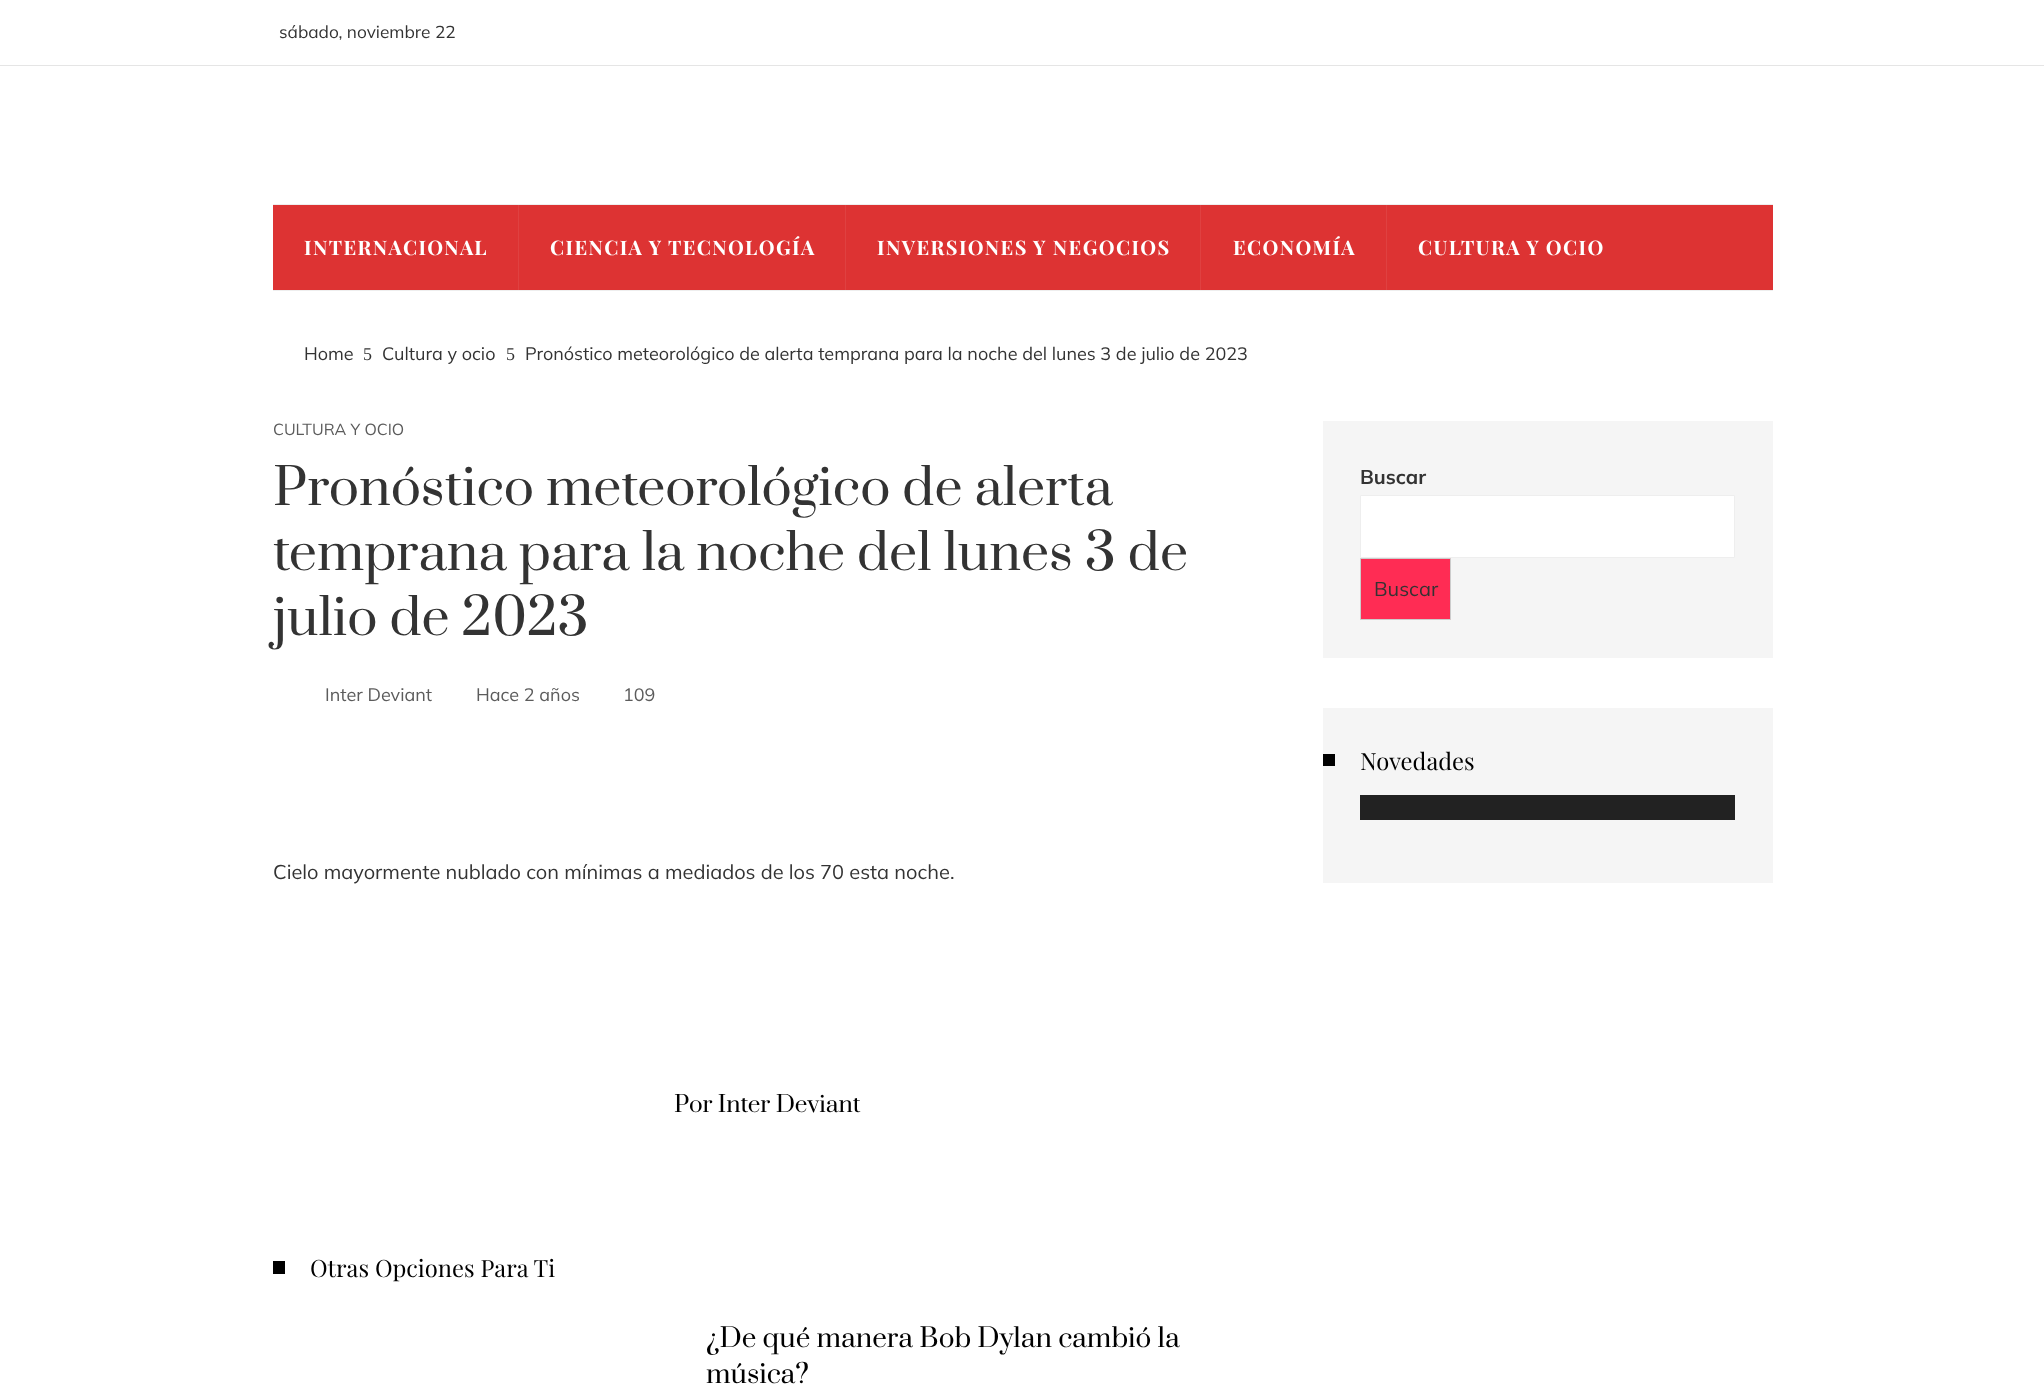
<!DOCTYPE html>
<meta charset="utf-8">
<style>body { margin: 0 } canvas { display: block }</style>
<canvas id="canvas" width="2044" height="1391"></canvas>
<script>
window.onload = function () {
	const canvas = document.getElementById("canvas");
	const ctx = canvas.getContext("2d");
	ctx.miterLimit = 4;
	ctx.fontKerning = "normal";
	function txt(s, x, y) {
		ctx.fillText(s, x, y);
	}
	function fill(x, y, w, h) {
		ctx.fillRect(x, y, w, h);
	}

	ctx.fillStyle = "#FFFFFF";
	fill(0, 0, 2044, 1391);
	ctx.fillStyle = "#E5E5E5";
	fill(0, 65, 2044, 1);
	ctx.fillStyle = "#DD3333";
	fill(273, 205, 1500, 85);
	ctx.fillStyle = "#DF4141";
	fill(1386, 204, 1, 87);
	fill(1200, 204, 1, 87);
	fill(845, 204, 1, 87);
	fill(518, 204, 1, 87);
	ctx.fillStyle = "#EEEEEE";
	fill(273, 204, 1500, 1);
	fill(273, 290, 1500, 1);
	ctx.fillStyle = "#000000";
	fill(273, 1261, 12, 13);
	ctx.fillStyle = "#F5F5F5";
	fill(1323, 421, 450, 237);
	ctx.fillStyle = "#FFFFFF";
	ctx.beginPath();
	ctx.rect(1360.5, 495.5, 374, 62);
	ctx.fill();
	ctx.strokeStyle = "#EEEEEE";
	ctx.stroke();
	ctx.fillStyle = "#FF2C54";
	ctx.beginPath();
	ctx.rect(1360.5, 558.5, 90, 61);
	ctx.fill();
	ctx.strokeStyle = "#CCCCCC";
	ctx.stroke();
	ctx.fillStyle = "#F5F5F5";
	fill(1323, 708, 450, 175);
	ctx.fillStyle = "#000000";
	fill(1323, 754, 12, 12);
	ctx.fillStyle = "#222222";
	fill(1360, 795, 375, 25);
	ctx.font = "17.25px Mulish";
	ctx.fillStyle = "#333333";
	txt("sábado, noviembre 22", 279, 38);
	ctx.letterSpacing = "1.4px";
	ctx.font = "bold 20px Playfair Display";
	ctx.fillStyle = "#FFFFFF";
	txt("INTERNACIONAL", 304, 255);
	txt("CIENCIA Y TECNOLOGÍA", 550, 255);
	txt("INVERSIONES Y NEGOCIOS", 877, 255);
	txt("ECONOMÍA", 1233, 255);
	txt("CULTURA Y OCIO", 1418, 255);
	ctx.letterSpacing = "0px";
	ctx.font = "18px Mulish";
	ctx.fillStyle = "#333333";
	txt("Home", 304, 360);
	ctx.font = "18px Liberation Serif";
	txt("5", 363, 360);
	ctx.font = "18px Mulish";
	txt("Cultura y ocio", 382, 360);
	ctx.font = "18px Liberation Serif";
	txt("5", 506, 360);
	ctx.font = "18px Mulish";
	txt("Pronóstico meteorológico de alerta temprana para la noche del lunes 3 de julio de 2023", 525, 360);
	ctx.font = "16px Mulish";
	ctx.fillStyle = "#5C5C5C";
	txt("CULTURA Y OCIO", 273, 435);
	ctx.font = "50px Prata";
	ctx.fillStyle = "#333333";
	txt("Pronóstico meteorológico de alerta", 273, 505);
	txt("temprana para la noche del lunes 3 de", 273, 570);
	txt("julio de 2023", 273, 635);
	ctx.font = "18px Mulish";
	ctx.fillStyle = "#5C5C5C";
	txt("Inter Deviant", 325, 701);
	txt("Hace 2 años", 476, 701);
	txt("109", 623, 701);
	ctx.font = "20px Mulish";
	ctx.fillStyle = "#333333";
	txt("Cielo mayormente nublado con mínimas a mediados de los 70 esta noche.", 273, 879);
	ctx.font = "22.5px Prata";
	ctx.fillStyle = "#000000";
	txt("Por Inter Deviant", 674, 1112);
	ctx.font = "23.75px Playfair Display";
	txt("Otras Opciones Para Ti", 310, 1277);
	ctx.font = "26px Prata";
	txt("¿De qué manera Bob Dylan cambió la", 706, 1347);
	txt("música?", 706, 1383);
	ctx.font = "bold 20px Mulish";
	ctx.fillStyle = "#333333";
	txt("Buscar", 1360, 484);
	ctx.font = "20px Mulish";
	txt("Buscar", 1374, 596);
	ctx.font = "23.75px Playfair Display";
	ctx.fillStyle = "#000000";
	txt("Novedades", 1360, 770);
};
</script>
